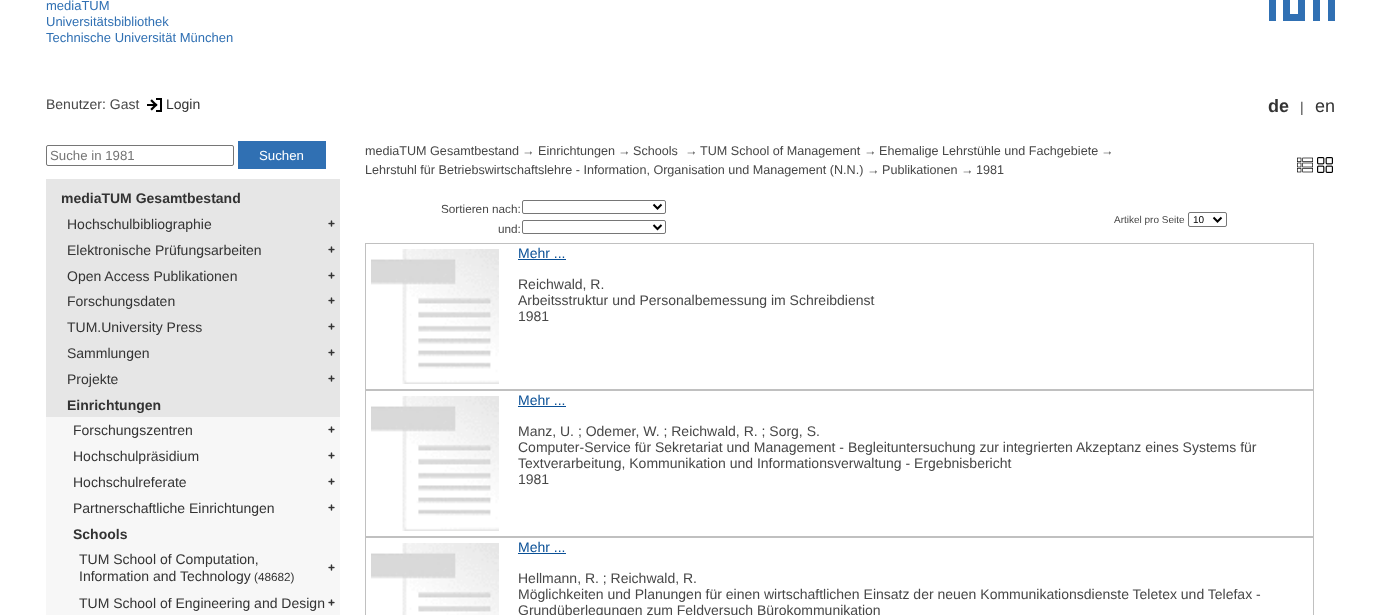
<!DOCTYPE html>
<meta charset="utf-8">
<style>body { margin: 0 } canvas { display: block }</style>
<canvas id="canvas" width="1381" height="615"></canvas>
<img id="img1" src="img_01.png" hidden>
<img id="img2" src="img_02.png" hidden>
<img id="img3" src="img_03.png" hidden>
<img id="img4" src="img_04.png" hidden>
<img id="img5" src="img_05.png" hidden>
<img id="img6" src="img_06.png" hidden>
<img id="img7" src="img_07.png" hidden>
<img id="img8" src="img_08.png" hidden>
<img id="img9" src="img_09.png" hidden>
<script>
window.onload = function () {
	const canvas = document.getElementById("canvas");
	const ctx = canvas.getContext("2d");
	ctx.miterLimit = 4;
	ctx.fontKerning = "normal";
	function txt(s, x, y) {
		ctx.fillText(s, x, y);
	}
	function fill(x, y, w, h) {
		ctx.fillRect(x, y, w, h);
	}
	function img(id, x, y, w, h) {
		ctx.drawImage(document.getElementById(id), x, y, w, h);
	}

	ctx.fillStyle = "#FFFFFF";
	fill(0, 0, 1381, 615);
	img("img1", 1269, 0, 66, 21);
	img("img2", 147, 98, 15, 14);
	ctx.beginPath();
	ctx.roundRect(46.5, 145.5, 187, 20, 1.5);
	ctx.strokeStyle = "#767676";
	ctx.stroke();
	ctx.fillStyle = "#3070B3";
	fill(238, 141, 88, 28);
	ctx.fillStyle = "#E6E6E6";
	fill(46, 179, 294, 238);
	img("img3", 328, 220, 7, 7);
	img("img3", 328, 246, 7, 7);
	img("img3", 328, 272, 7, 7);
	img("img3", 328, 297, 7, 7);
	img("img3", 328, 323, 7, 7);
	img("img3", 328, 349, 7, 7);
	img("img3", 328, 375, 7, 7);
	ctx.fillStyle = "#F7F7F7";
	fill(46, 417, 294, 198);
	img("img4", 328, 426, 7, 7);
	img("img4", 328, 452, 7, 7);
	img("img4", 328, 478, 7, 7);
	img("img4", 328, 504, 7, 7);
	img("img4", 328, 564, 7, 7);
	img("img4", 328, 599, 7, 7);
	img("img5", 1297, 157, 16, 16);
	img("img6", 1317, 157, 16, 16);
	ctx.beginPath();
	ctx.roundRect(522.5, 200.5, 143, 13, 1.5);
	ctx.stroke();
	ctx.beginPath();
	ctx.moveTo(653.5, 204.5);
	ctx.lineTo(657.5, 208.5);
	ctx.lineTo(661.5, 204.5);
	ctx.strokeStyle = "#000000";
	ctx.lineWidth = 2;
	ctx.stroke();
	ctx.beginPath();
	ctx.roundRect(522.5, 220.5, 143, 13, 1.5);
	ctx.strokeStyle = "#767676";
	ctx.lineWidth = 1;
	ctx.stroke();
	ctx.beginPath();
	ctx.moveTo(653.5, 225);
	ctx.lineTo(657.5, 229);
	ctx.lineTo(661.5, 225);
	ctx.strokeStyle = "#000000";
	ctx.lineWidth = 2;
	ctx.stroke();
	ctx.beginPath();
	ctx.roundRect(1188.5, 212.5, 38, 14, 1.5);
	ctx.strokeStyle = "#767676";
	ctx.lineWidth = 1;
	ctx.stroke();
	ctx.beginPath();
	ctx.moveTo(1213.5, 217.5);
	ctx.lineTo(1217.5, 221.5);
	ctx.lineTo(1221.5, 217.5);
	ctx.strokeStyle = "#000000";
	ctx.lineWidth = 2;
	ctx.stroke();
	ctx.strokeStyle = "#C0C0C0";
	ctx.lineWidth = 1;
	ctx.strokeRect(365.5, 243.5, 948, 146);
	img("img7", 371, 249, 128, 135);
	ctx.fillStyle = "#0A5096";
	fill(518, 259, 48, 1);
	ctx.strokeRect(365.5, 390.5, 948, 146);
	img("img8", 371, 396, 128, 135);
	fill(518, 406, 48, 1);
	ctx.strokeRect(365.5, 537.5, 948, 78);
	img("img9", 371, 543, 128, 72);
	fill(518, 553, 48, 1);
	ctx.font = "13px Liberation Sans";
	ctx.fillStyle = "#3070B3";
	txt("mediaTUM", 46, 10);
	txt("Universitätsbibliothek", 46, 26);
	txt("Technische Universität München", 46, 42);
	ctx.font = "14px Liberation Sans";
	ctx.fillStyle = "#474747";
	txt("Benutzer: Gast", 46, 109);
	ctx.fillStyle = "#333333";
	txt("Login", 166, 109);
	ctx.font = "bold 18px Liberation Sans";
	txt("de", 1268, 112);
	ctx.font = "14px Liberation Sans";
	ctx.fillStyle = "#474747";
	txt("|", 1300, 112);
	ctx.font = "18px Liberation Sans";
	ctx.fillStyle = "#333333";
	txt("en", 1315, 112);
	ctx.font = "13.25px Liberation Sans";
	ctx.fillStyle = "#757575";
	txt("Suche in 1981", 50, 160);
	ctx.fillStyle = "#FFFFFF";
	txt("Suchen", 259, 160);
	ctx.font = "bold 14px Liberation Sans";
	ctx.fillStyle = "#333333";
	txt("mediaTUM Gesamtbestand", 61, 203);
	ctx.font = "14px Liberation Sans";
	txt("Hochschulbibliographie", 67, 229);
	txt("Elektronische Prüfungsarbeiten", 67, 255);
	txt("Open Access Publikationen", 67, 281);
	txt("Forschungsdaten", 67, 306);
	txt("TUM.University Press", 67, 332);
	txt("Sammlungen", 67, 358);
	txt("Projekte", 67, 384);
	ctx.font = "bold 14px Liberation Sans";
	txt("Einrichtungen", 67, 410);
	ctx.font = "14px Liberation Sans";
	txt("Forschungszentren", 73, 435);
	txt("Hochschulpräsidium", 73, 461);
	txt("Hochschulreferate", 73, 487);
	txt("Partnerschaftliche Einrichtungen", 73, 513);
	ctx.font = "bold 14px Liberation Sans";
	txt("Schools", 73, 539);
	ctx.font = "14px Liberation Sans";
	txt("TUM School of Computation,", 79, 564);
	txt("Information and Technology", 79, 581);
	ctx.font = "11.75px Liberation Sans";
	txt("(48682)", 254, 581);
	ctx.font = "14px Liberation Sans";
	txt("TUM School of Engineering and Design", 79, 608);
	ctx.font = "12.6px Liberation Sans";
	ctx.fillStyle = "#474747";
	txt("mediaTUM Gesamtbestand", 365, 155);
	txt("→", 522, 155);
	txt("Einrichtungen", 538, 155);
	txt("→", 618, 155);
	txt("Schools", 633, 155);
	txt("→", 685, 155);
	txt("TUM School of Management", 700, 155);
	txt("→", 864, 155);
	txt("Ehemalige Lehrstühle und Fachgebiete", 879, 155);
	txt("→", 1101, 155);
	txt("Lehrstuhl für Betriebswirtschaftslehre - Information, Organisation und Management (N.N.)", 365, 174);
	txt("→", 867, 174);
	txt("Publikationen", 882, 174);
	txt("→", 961, 174);
	txt("1981", 976, 174);
	ctx.font = "11.75px Liberation Sans";
	txt("Sortieren nach:", 441, 213);
	txt("und:", 498, 233);
	ctx.font = "10px Liberation Sans";
	txt("Artikel pro Seite", 1114, 223);
	ctx.fillStyle = "#000000";
	txt("10", 1193, 223);
	ctx.font = "14px Liberation Sans";
	ctx.fillStyle = "#0A5096";
	txt("Mehr ...", 518, 258);
	ctx.fillStyle = "#474747";
	txt("Reichwald, R.", 518, 289);
	txt("Arbeitsstruktur und Personalbemessung im Schreibdienst", 518, 305);
	txt("1981", 518, 321);
	ctx.fillStyle = "#0A5096";
	txt("Mehr ...", 518, 405);
	ctx.fillStyle = "#474747";
	txt("Manz, U. ; Odemer, W. ; Reichwald, R. ; Sorg, S.", 518, 436);
	txt("Computer-Service für Sekretariat und Management - Begleituntersuchung zur integrierten Akzeptanz eines Systems für", 518, 452);
	txt("Textverarbeitung, Kommunikation und Informationsverwaltung - Ergebnisbericht", 518, 468);
	txt("1981", 518, 484);
	ctx.fillStyle = "#0A5096";
	txt("Mehr ...", 518, 552);
	ctx.fillStyle = "#474747";
	txt("Hellmann, R. ; Reichwald, R.", 518, 583);
	txt("Möglichkeiten und Planungen für einen wirtschaftlichen Einsatz der neuen Kommunikationsdienste Teletex und Telefax -", 518, 599);
	txt("Grundüberlegungen zum Feldversuch Bürokommunikation", 518, 615);
};
</script>
